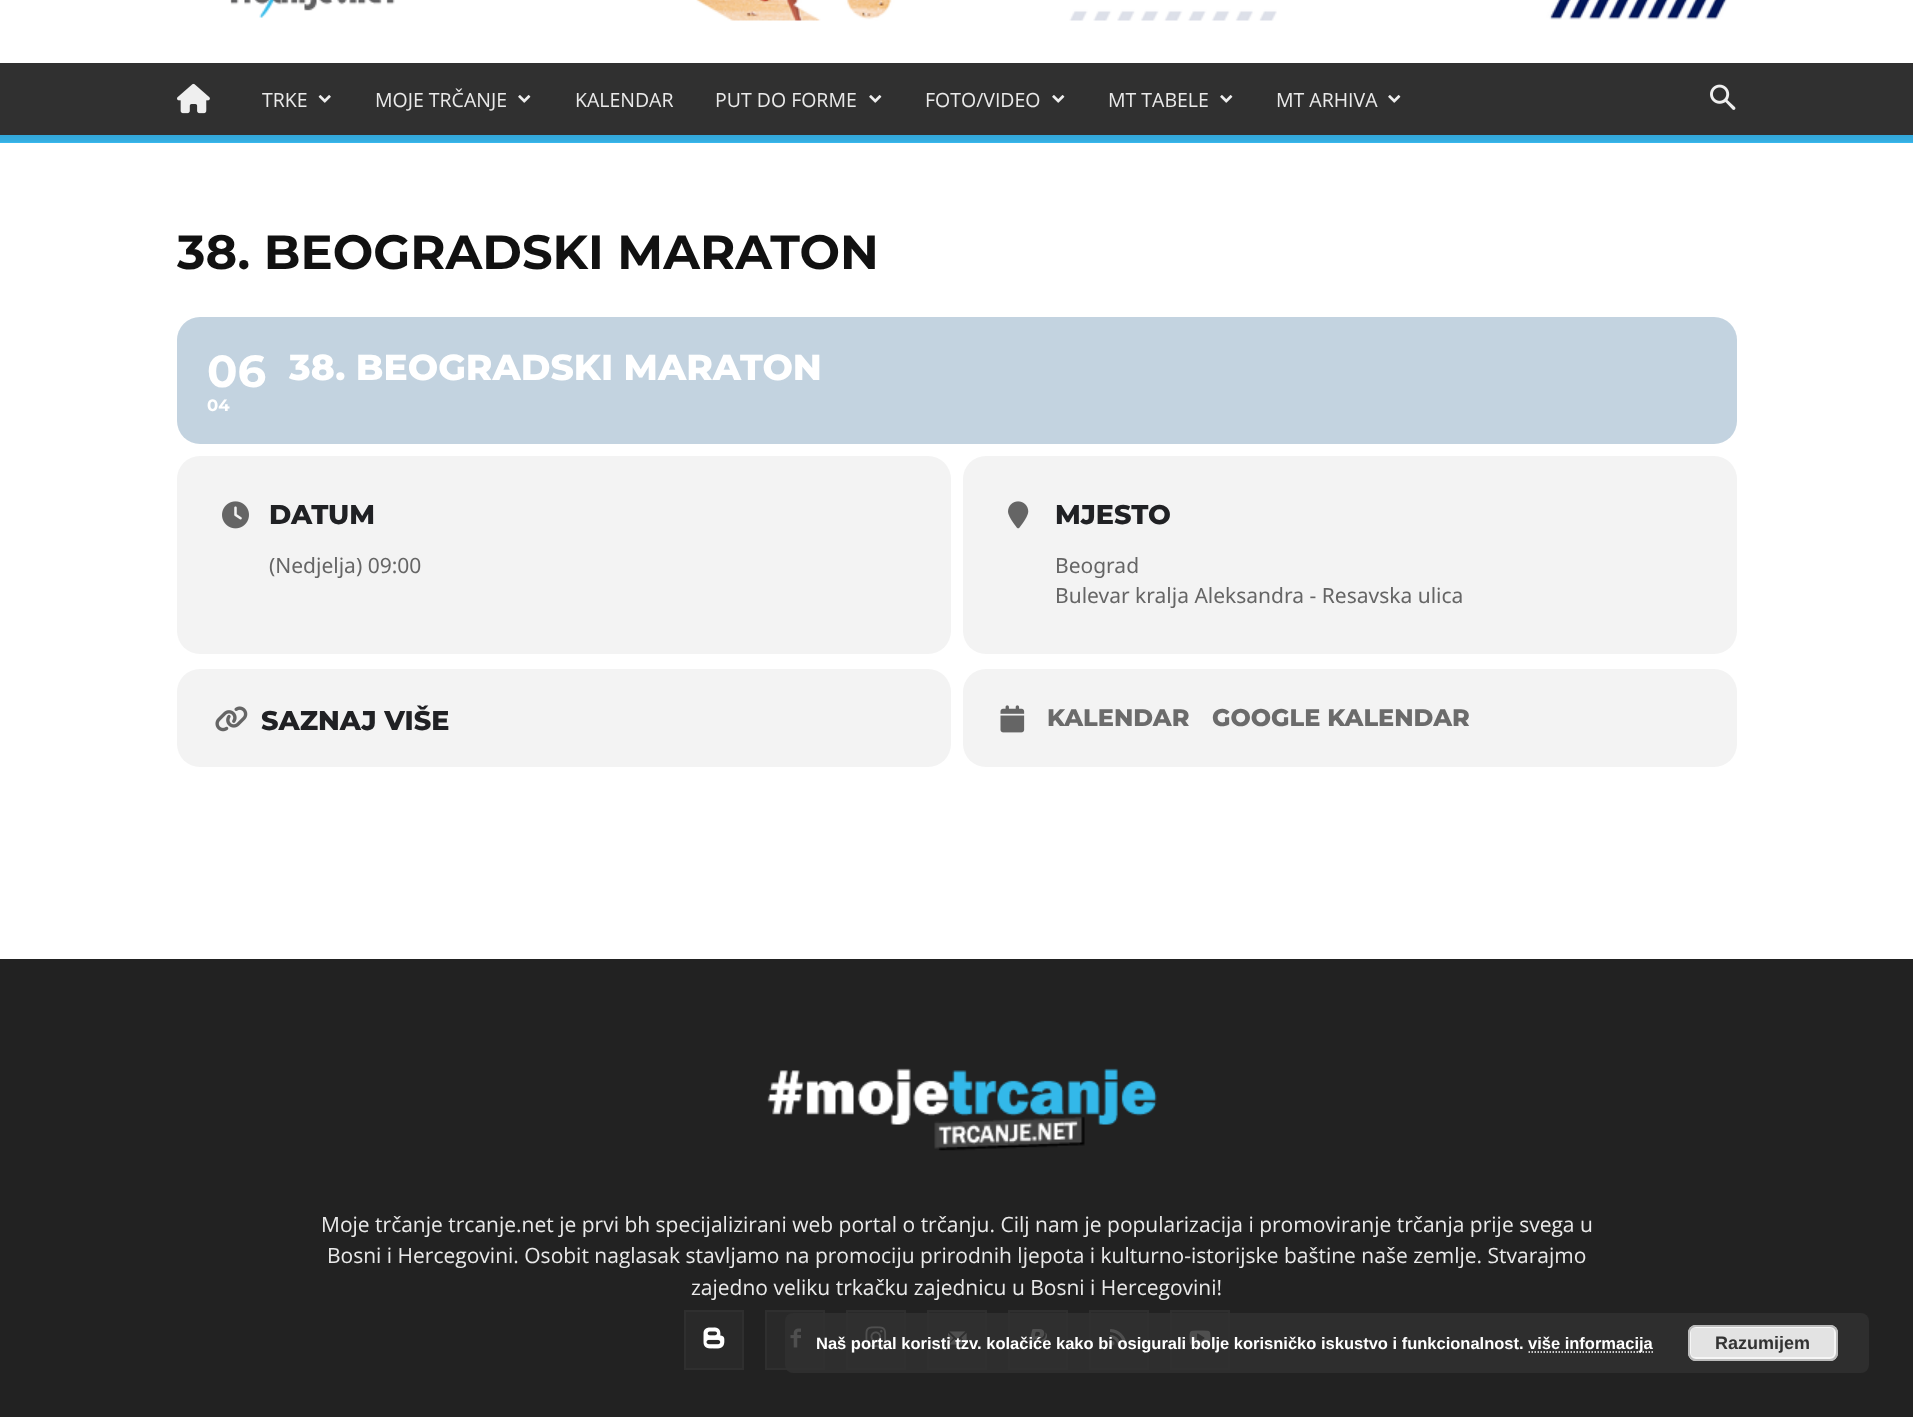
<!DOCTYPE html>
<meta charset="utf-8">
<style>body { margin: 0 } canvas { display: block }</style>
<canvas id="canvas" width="1913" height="1417"></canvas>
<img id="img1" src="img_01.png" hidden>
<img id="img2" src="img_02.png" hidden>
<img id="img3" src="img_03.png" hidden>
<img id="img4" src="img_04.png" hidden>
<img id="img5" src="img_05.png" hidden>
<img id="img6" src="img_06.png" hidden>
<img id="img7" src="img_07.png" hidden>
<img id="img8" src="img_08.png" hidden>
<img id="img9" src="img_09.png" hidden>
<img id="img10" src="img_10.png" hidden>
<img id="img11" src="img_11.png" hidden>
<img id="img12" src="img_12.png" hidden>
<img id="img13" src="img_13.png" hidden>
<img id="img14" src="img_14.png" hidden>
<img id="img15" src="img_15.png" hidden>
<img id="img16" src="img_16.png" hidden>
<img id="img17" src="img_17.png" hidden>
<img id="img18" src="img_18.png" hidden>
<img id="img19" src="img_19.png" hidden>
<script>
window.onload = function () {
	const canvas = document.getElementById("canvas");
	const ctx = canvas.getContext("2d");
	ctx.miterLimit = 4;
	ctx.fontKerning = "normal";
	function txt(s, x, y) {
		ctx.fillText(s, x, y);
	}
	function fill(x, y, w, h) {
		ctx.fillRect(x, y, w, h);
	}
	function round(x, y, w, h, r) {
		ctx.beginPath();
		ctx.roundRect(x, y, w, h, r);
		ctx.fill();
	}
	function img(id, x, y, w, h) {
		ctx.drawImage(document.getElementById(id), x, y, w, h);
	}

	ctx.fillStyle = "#FFFFFF";
	fill(0, 0, 1913, 1417);
	img("img1", 230, 0, 165, 18);
	img("img2", 696, 0, 1031, 21);
	ctx.fillStyle = "#303030";
	fill(0, 63, 1913, 72);
	img("img3", 177, 83, 33, 31);
	img("img4", 318, 95, 13, 8);
	img("img5", 518, 95, 13, 8);
	img("img5", 869, 95, 13, 8);
	img("img5", 1052, 95, 13, 8);
	img("img5", 1220, 95, 13, 8);
	img("img5", 1388, 95, 13, 8);
	img("img6", 1710, 84, 26, 26);
	ctx.fillStyle = "#38B7ED";
	fill(0, 135, 1913, 8);
	img("img7", 0, 135, 1913, 7);
	ctx.fillStyle = "#C3D3E0";
	round(177, 317, 1560, 127, 23);
	ctx.fillStyle = "#F3F3F3";
	round(177, 456, 774, 198, 23);
	img("img8", 222, 501, 27, 28);
	round(963, 456, 774, 198, 23);
	img("img9", 1008, 501, 21, 28);
	round(177, 669, 774, 98, 23);
	img("img10", 215, 706, 33, 26);
	round(963, 669, 774, 98, 23);
	img("img11", 1000, 705, 25, 28);
	ctx.fillStyle = "#222222";
	fill(0, 959, 1913, 458);
	img("img12", 767, 1068, 390, 83);
	ctx.fillStyle = "#292929";
	fill(686, 1312, 56, 56);
	img("img13", 703, 1327, 22, 22);
	ctx.strokeStyle = "#2F2F2F";
	ctx.lineWidth = 2;
	ctx.strokeRect(685, 1311, 58, 58);
	fill(767, 1312, 56, 56);
	img("img14", 790, 1328, 11, 20);
	ctx.strokeRect(766, 1311, 58, 58);
	fill(848, 1312, 56, 56);
	img("img15", 865, 1326, 22, 21);
	ctx.strokeRect(847, 1311, 58, 58);
	fill(929, 1312, 56, 56);
	img("img16", 948, 1331, 19, 14);
	ctx.strokeRect(928, 1311, 58, 58);
	fill(1010, 1312, 56, 56);
	img("img17", 1029, 1329, 18, 18);
	ctx.strokeRect(1009, 1311, 58, 58);
	fill(1091, 1312, 56, 56);
	img("img18", 1110, 1329, 17, 17);
	ctx.strokeRect(1090, 1311, 58, 58);
	fill(1172, 1312, 56, 56);
	img("img19", 1189, 1330, 22, 16);
	ctx.strokeRect(1171, 1311, 58, 58);
	ctx.fillStyle = "rgba(48, 48, 48, 0.85)";
	round(785, 1313, 1084, 60, 8);
	ctx.beginPath();
	ctx.moveTo(1528.5, 1352);
	ctx.lineTo(1653, 1352);
	ctx.strokeStyle = "#FFFFFF";
	ctx.lineWidth = 1.5;
	ctx.setLineDash([1.5, 1.5]);
	ctx.stroke();
	ctx.fillStyle = "#E3E3E3";
	round(1688, 1325, 150, 36, 8);
	ctx.beginPath();
	ctx.roundRect(1690, 1327, 145, 31, 5);
	ctx.strokeStyle = "#F6F6F6";
	ctx.lineWidth = 2;
	ctx.setLineDash([]);
	ctx.stroke();
	ctx.beginPath();
	ctx.roundRect(1689, 1326, 148, 34, 7);
	ctx.strokeStyle = "#BBBBBB";
	ctx.stroke();
	ctx.font = "19.5px Open Sans";
	ctx.fillStyle = "#EAEAEA";
	txt("TRKE", 262, 107);
	txt("MOJE TRČANJE", 375, 107);
	txt("KALENDAR", 575, 107);
	txt("PUT DO FORME", 715, 107);
	txt("FOTO/VIDEO", 925, 107);
	txt("MT TABELE", 1108, 107);
	txt("MT ARHIVA", 1276, 107);
	ctx.font = "bold 48px Montserrat";
	ctx.fillStyle = "#111111";
	txt("38. BEOGRADSKI MARATON", 177, 269);
	ctx.font = "bold 45px Montserrat";
	ctx.fillStyle = "#FFFFFF";
	txt("06", 207, 387);
	ctx.font = "bold 16.5px Montserrat";
	txt("04", 207, 411);
	ctx.font = "800 36px Montserrat";
	txt("38. BEOGRADSKI MARATON", 289, 380);
	ctx.font = "800 27px Montserrat";
	ctx.fillStyle = "#202124";
	txt("DATUM", 269, 524);
	ctx.font = "21px Noto Sans";
	ctx.fillStyle = "#656565";
	txt("(Nedjelja) 09:00", 269, 573);
	ctx.font = "800 27px Montserrat";
	ctx.fillStyle = "#202124";
	txt("MJESTO", 1055, 524);
	ctx.font = "21px Noto Sans";
	ctx.fillStyle = "#656565";
	txt("Beograd", 1055, 573);
	txt("Bulevar kralja Aleksandra - Resavska ulica", 1055, 603);
	ctx.font = "800 27px Montserrat";
	ctx.fillStyle = "#202124";
	txt("SAZNAJ VIŠE", 261, 730);
	ctx.font = "800 24px Montserrat";
	ctx.fillStyle = "#6B6B6B";
	txt("KALENDAR", 1047, 726);
	txt("GOOGLE KALENDAR", 1212, 726);
	ctx.font = "21px Open Sans";
	ctx.fillStyle = "#EAEAEA";
	txt("Moje trčanje trcanje.net je prvi bh specijalizirani web portal o trčanju. Cilj nam je popularizacija i promoviranje trčanja prije svega u", 321, 1232);
	txt("Bosni i Hercegovini. Osobit naglasak stavljamo na promociju prirodnih ljepota i kulturno-istorijske baštine naše zemlje. Stvarajmo", 327, 1263);
	txt("zajedno veliku trkačku zajednicu u Bosni i Hercegovini!", 691, 1295);
	ctx.font = "bold 16.5px Liberation Sans";
	ctx.fillStyle = "#FFFFFF";
	txt("Naš portal koristi tzv. kolačiće kako bi osigurali bolje korisničko iskustvo i funkcionalnost.", 816, 1349);
	txt("više informacija", 1528, 1349);
	ctx.font = "bold 18px Liberation Sans";
	ctx.fillStyle = "#333333";
	txt("Razumijem", 1715, 1349);
};
</script>
